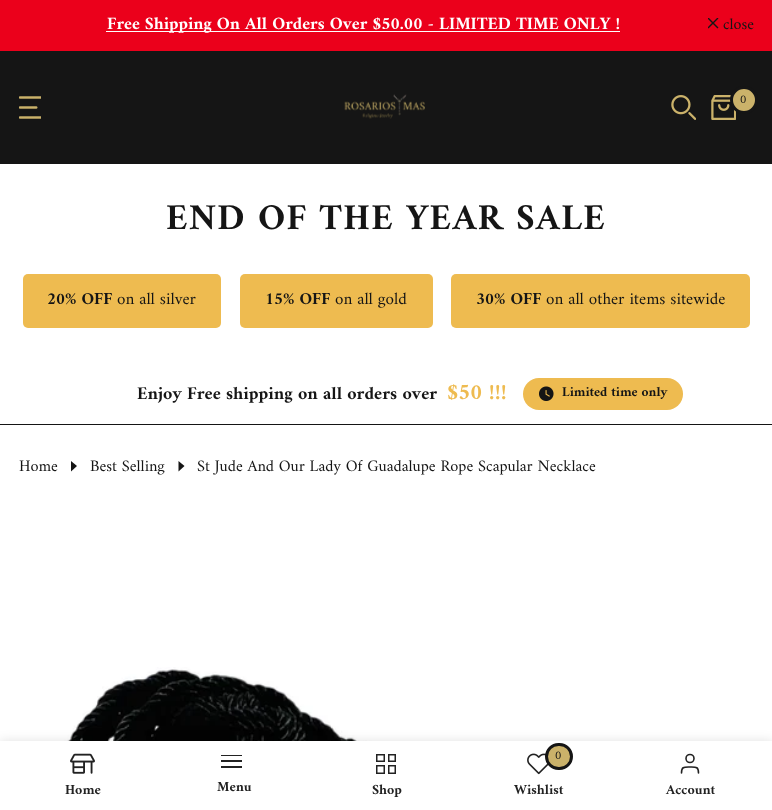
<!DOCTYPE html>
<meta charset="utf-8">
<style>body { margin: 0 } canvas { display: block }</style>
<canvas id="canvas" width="772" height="810"></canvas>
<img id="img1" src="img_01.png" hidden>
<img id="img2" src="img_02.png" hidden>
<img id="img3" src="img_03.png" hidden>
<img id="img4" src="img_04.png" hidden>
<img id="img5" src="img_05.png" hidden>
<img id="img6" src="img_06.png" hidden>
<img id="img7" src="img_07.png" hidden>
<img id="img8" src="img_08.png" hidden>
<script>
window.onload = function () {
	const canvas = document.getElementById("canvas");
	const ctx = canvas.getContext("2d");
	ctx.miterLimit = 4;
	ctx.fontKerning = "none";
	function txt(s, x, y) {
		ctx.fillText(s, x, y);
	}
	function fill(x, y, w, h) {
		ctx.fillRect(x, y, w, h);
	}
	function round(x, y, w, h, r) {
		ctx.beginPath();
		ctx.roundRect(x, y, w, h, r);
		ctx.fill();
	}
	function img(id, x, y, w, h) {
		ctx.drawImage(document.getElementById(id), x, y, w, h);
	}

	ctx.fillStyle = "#FFFFFF";
	fill(0, 0, 772, 810);
	ctx.fillStyle = "#EB001B";
	fill(0, 0, 772, 51);
	ctx.fillStyle = "#FFFFFF";
	fill(106, 31, 514, 1);
	ctx.save();
	ctx.beginPath();
	ctx.rect(708, 18, 11, 11);
	ctx.clip();
	ctx.beginPath();
	ctx.moveTo(718, 18);
	ctx.lineTo(708, 28);
	ctx.moveTo(718, 28);
	ctx.lineTo(708, 18);
	ctx.strokeStyle = "#151515";
	ctx.lineWidth = 1.4;
	ctx.stroke();
	ctx.restore();
	ctx.fillStyle = "#151515";
	fill(0, 51, 772, 113);
	img("img1", 19, 96, 22, 23);
	img("img2", 344, 94, 81, 25);
	img("img3", 671, 95, 25, 25);
	img("img4", 711, 95, 25, 25);
	ctx.fillStyle = "#CBB26A";
	ctx.beginPath();
	ctx.arc(744, 100, 12.5, 0, Math.PI * 2);
	ctx.fill();
	ctx.strokeStyle = "#151515";
	ctx.lineWidth = 3;
	ctx.stroke();
	ctx.fillStyle = "#EEBB50";
	round(23, 274, 198, 54, 5);
	round(240, 274, 193, 54, 5);
	round(451, 274, 299, 54, 5);
	round(523, 378, 160, 32, 16);
	img("img5", 539, 386, 15, 15);
	ctx.fillStyle = "#151515";
	fill(0, 424, 772, 1);
	ctx.beginPath();
	ctx.moveTo(71, 471.5);
	ctx.lineTo(71, 461);
	ctx.lineTo(77, 466);
	ctx.closePath();
	ctx.fill();
	ctx.beginPath();
	ctx.moveTo(178.5, 471.5);
	ctx.lineTo(178.5, 461);
	ctx.lineTo(184.5, 466);
	ctx.closePath();
	ctx.fill();
	img("img6", 63, 667, 408, 74);
	ctx.fillStyle = "rgba(0, 0, 0, 0.12)";
	ctx.filter = "blur(5.5px)";
	ctx.beginPath();
	ctx.rect(0, 741, 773, 69);
	ctx.fill();
	ctx.filter = "none";
	ctx.fillStyle = "#FFFFFF";
	fill(0, 741, 772, 69);
	img("img7", 70, 753, 25, 21);
	ctx.fillStyle = "#222222";
	fill(221, 755, 21, 1);
	fill(221, 760, 21, 2);
	fill(221, 766, 21, 2);
	ctx.strokeStyle = "#222222";
	ctx.lineWidth = 1.5;
	ctx.strokeRect(376.75, 754.75, 7.5, 6.5);
	ctx.strokeRect(388.75, 754.75, 6.5, 6.5);
	ctx.strokeRect(376.75, 765.75, 7.5, 7.5);
	ctx.strokeRect(388.75, 765.75, 6.5, 7.5);
	img("img8", 527, 753, 22, 22);
	ctx.fillStyle = "#CBB26A";
	ctx.beginPath();
	ctx.roundRect(546.5, 744.5, 25, 24, 12);
	ctx.fill();
	ctx.strokeStyle = "#151515";
	ctx.lineWidth = 3;
	ctx.stroke();
	ctx.beginPath();
	ctx.arc(690, 758.5, 4, 0, Math.PI * 2);
	ctx.strokeStyle = "#222222";
	ctx.lineWidth = 1.6;
	ctx.stroke();
	ctx.beginPath();
	ctx.moveTo(698.5, 773);
	ctx.bezierCurveTo(698.5, 766.5, 696, 767, 690, 767);
	ctx.bezierCurveTo(684, 767, 681.5, 766.5, 681.5, 773);
	ctx.lineCap = "round";
	ctx.lineJoin = "round";
	ctx.stroke();
	ctx.font = "bold 17.5px Amiri";
	ctx.fillStyle = "#FFFFFF";
	txt("Free Shipping On All Orders Over $50.00 - LIMITED TIME ONLY !", 107, 29);
	ctx.font = "16px Amiri";
	ctx.fillStyle = "#151515";
	txt("close", 723, 29);
	ctx.font = "12px Amiri";
	txt("0", 740, 103);
	ctx.letterSpacing = "1.25px";
	ctx.font = "bold 36.75px Amiri";
	txt("END OF THE YEAR SALE", 166, 229);
	ctx.letterSpacing = "0px";
	ctx.font = "bold 17px Amiri";
	txt("20% OFF", 47, 304);
	ctx.font = "17px Amiri";
	txt("on all silver", 117, 304);
	ctx.font = "bold 17px Amiri";
	txt("15% OFF", 265, 304);
	ctx.font = "17px Amiri";
	txt("on all gold", 335, 304);
	ctx.font = "bold 17px Amiri";
	txt("30% OFF", 476, 304);
	ctx.font = "17px Amiri";
	txt("on all other items sitewide", 546, 304);
	ctx.font = "bold 18px Amiri";
	txt("Enjoy Free shipping on all orders over", 137, 399);
	ctx.font = "bold 22.5px Amiri";
	ctx.fillStyle = "#EEBB50";
	txt("$50 !!!", 447, 399);
	ctx.font = "bold 13.5px Amiri";
	ctx.fillStyle = "#151515";
	txt("Limited time only", 562, 396);
	ctx.font = "16.25px Amiri";
	txt("Home", 19, 471);
	txt("Best Selling", 90, 471);
	txt("St Jude And Our Lady Of Guadalupe Rope Scapular Necklace", 197, 471);
	ctx.font = "bold 14px Amiri";
	ctx.fillStyle = "#222222";
	txt("Home", 65, 794);
	txt("Menu", 217, 791);
	txt("Shop", 372, 794);
	ctx.font = "12px Amiri";
	ctx.fillStyle = "#151515";
	txt("0", 555, 759);
	ctx.font = "bold 14px Amiri";
	ctx.fillStyle = "#222222";
	txt("Wishlist", 514, 794);
	txt("Account", 666, 794);
};
</script>
